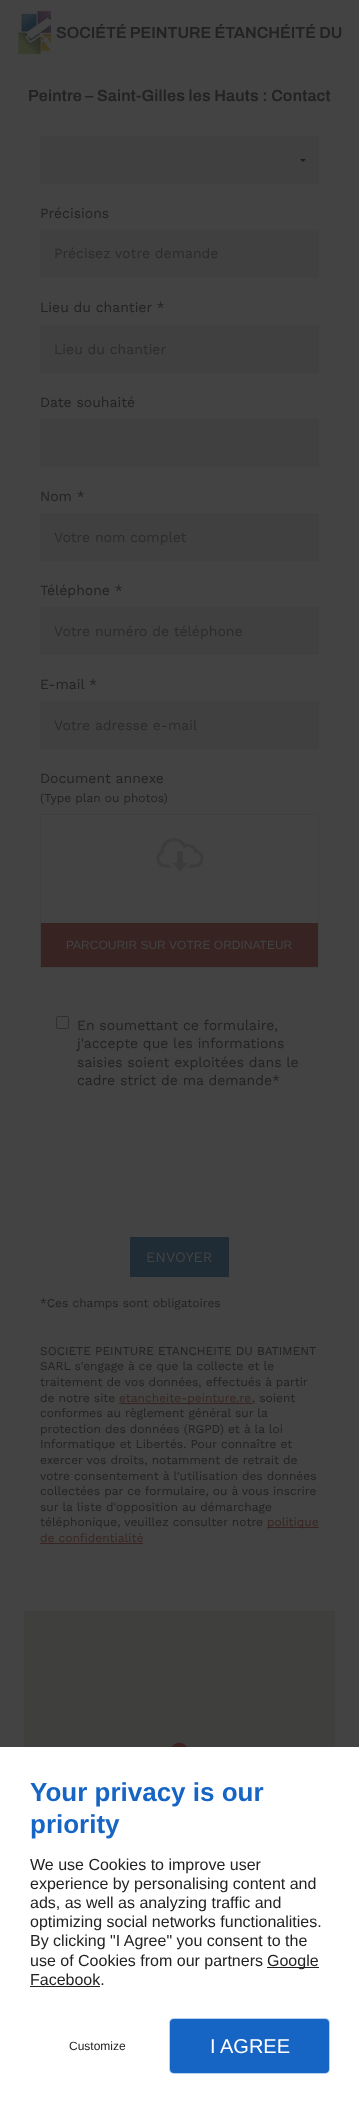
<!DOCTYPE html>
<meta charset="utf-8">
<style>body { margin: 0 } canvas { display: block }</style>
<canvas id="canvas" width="359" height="2103"></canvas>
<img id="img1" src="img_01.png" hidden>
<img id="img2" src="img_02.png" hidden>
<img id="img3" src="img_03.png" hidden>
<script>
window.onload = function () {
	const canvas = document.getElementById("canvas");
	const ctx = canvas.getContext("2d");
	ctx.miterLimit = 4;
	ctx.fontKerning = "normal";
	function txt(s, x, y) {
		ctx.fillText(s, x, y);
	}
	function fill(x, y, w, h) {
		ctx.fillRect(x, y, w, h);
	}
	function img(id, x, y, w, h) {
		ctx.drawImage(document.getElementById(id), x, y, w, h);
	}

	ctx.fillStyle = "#434343";
	fill(0, 0, 359, 2103);
	img("img1", 18, 10, 33, 45);
	ctx.fillStyle = "#404040";
	fill(40, 136, 279, 48);
	ctx.fillStyle = "#1D1D1D";
	ctx.beginPath();
	ctx.moveTo(306, 159);
	ctx.lineTo(303, 162);
	ctx.lineTo(300, 159);
	ctx.closePath();
	ctx.fill();
	ctx.fillStyle = "#404040";
	fill(40, 230, 279, 48);
	fill(40, 325, 279, 48);
	fill(40, 419, 279, 48);
	fill(40, 513, 279, 48);
	fill(40, 607, 279, 48);
	fill(40, 701, 279, 48);
	ctx.strokeStyle = "#3F3F3F";
	ctx.strokeRect(40.5, 814.5, 278, 153);
	img("img2", 156, 838, 48, 34);
	ctx.fillStyle = "#372422";
	fill(41, 923, 277, 44);
	ctx.beginPath();
	ctx.roundRect(56.5, 1016.5, 12, 12, 1.5);
	ctx.strokeStyle = "#2F2F2F";
	ctx.stroke();
	ctx.fillStyle = "#1F2B35";
	fill(130, 1237, 99, 40);
	ctx.fillStyle = "#372422";
	fill(119, 1403, 133, 1);
	fill(267, 1527, 52, 1);
	fill(40, 1543, 103, 1);
	ctx.fillStyle = "#3F3F3E";
	fill(24, 1611, 311, 136);
	img("img3", 171, 1742, 16, 5);
	ctx.fillStyle = "#FFFFFF";
	fill(0, 1747, 359, 356);
	ctx.fillStyle = "#222222";
	fill(267, 1967, 52, 1);
	fill(30, 1986, 70, 1);
	ctx.fillStyle = "rgba(22, 101, 196, 0.3)";
	ctx.filter = "blur(0.5px)";
	ctx.beginPath();
	ctx.roundRect(169, 2018, 161, 56, 5);
	ctx.fill();
	ctx.filter = "none";
	ctx.fillStyle = "#1665C4";
	ctx.beginPath();
	ctx.roundRect(171, 2020, 157, 52, 3);
	ctx.fill();
	ctx.strokeStyle = "#1665C4";
	ctx.lineWidth = 2;
	ctx.stroke();
	ctx.font = "600 16px Archivo";
	ctx.fillStyle = "#222222";
	txt("SOCIÉTÉ PEINTURE ÉTANCHÉITÉ DU", 56, 38);
	ctx.letterSpacing = "0.2px";
	txt("Peintre – Saint-Gilles les Hauts : Contact", 28, 101);
	ctx.letterSpacing = "0px";
	ctx.font = "14px Work Sans";
	txt("Précisions", 40, 218);
	ctx.fillStyle = "#2B2B2B";
	txt("Précisez votre demande", 54, 258);
	ctx.fillStyle = "#222222";
	txt("Lieu du chantier *", 40, 312);
	ctx.fillStyle = "#2B2B2B";
	txt("Lieu du chantier", 54, 354);
	ctx.fillStyle = "#222222";
	txt("Date souhaité", 40, 407);
	txt("Nom *", 40, 501);
	ctx.fillStyle = "#2B2B2B";
	txt("Votre nom complet", 54, 542);
	ctx.fillStyle = "#222222";
	txt("Téléphone *", 40, 595);
	ctx.fillStyle = "#2B2B2B";
	txt("Votre numéro de téléphone", 54, 636);
	ctx.fillStyle = "#222222";
	txt("E-mail *", 40, 689);
	ctx.fillStyle = "#2B2B2B";
	txt("Votre adresse e-mail", 54, 730);
	ctx.fillStyle = "#222222";
	txt("Document annexe", 40, 783);
	ctx.font = "12px Work Sans";
	txt("(Type plan ou photos)", 40, 802);
	ctx.font = "12px Liberation Sans";
	ctx.fillStyle = "#434343";
	txt("PARCOURIR SUR VOTRE ORDINATEUR", 66, 949);
	ctx.font = "14px Work Sans";
	ctx.fillStyle = "#222222";
	txt("En soumettant ce formulaire,", 77, 1030);
	txt("j'accepte que les informations", 77, 1048);
	txt("saisies soient exploitées dans le", 77, 1067);
	txt("cadre strict de ma demande*", 77, 1085);
	ctx.font = "14.5px Work Sans";
	ctx.fillStyle = "#434343";
	txt("ENVOYER", 146, 1262);
	ctx.font = "12px Work Sans";
	ctx.fillStyle = "#222222";
	txt("*Ces champs sont obligatoires", 40, 1307);
	txt("SOCIETE PEINTURE ETANCHEITE DU BATIMENT", 40, 1355);
	txt("SARL s'engage à ce que la collecte et le", 40, 1370);
	txt("traitement de vos données, effectués à partir", 40, 1386);
	txt("de notre site", 40, 1402);
	ctx.fillStyle = "#372422";
	txt("etancheite-peinture.re", 119, 1402);
	ctx.fillStyle = "#222222";
	txt(", soient", 252, 1402);
	txt("conformes au règlement général sur la", 40, 1417);
	txt("protection des données (RGPD) et à la loi", 40, 1433);
	txt("Informatique et Libertés. Pour connaître et", 40, 1448);
	txt("exercer vos droits, notamment de retrait de", 40, 1464);
	txt("votre consentement à l'utilisation des données", 40, 1480);
	txt("collectées par ce formulaire, ou à vous inscrire", 40, 1495);
	txt("sur la liste d'opposition au démarchage", 40, 1511);
	txt("téléphonique, veuillez consulter notre", 40, 1526);
	ctx.fillStyle = "#372422";
	txt("politique", 267, 1526);
	txt("de confidentialité", 40, 1542);
	ctx.font = "bold 26px Liberation Sans";
	ctx.fillStyle = "#1665C4";
	txt("Your privacy is our", 30, 1801);
	txt("priority", 30, 1833);
	ctx.font = "16px Liberation Sans";
	ctx.fillStyle = "#222222";
	txt("We use Cookies to improve user", 30, 1870);
	txt("experience by personalising content and", 30, 1889);
	txt("ads, as well as analyzing traffic and", 30, 1908);
	txt("optimizing social networks functionalities.", 30, 1927);
	txt("By clicking \"I Agree\" you consent to the", 30, 1946);
	txt("use of Cookies from our partners", 30, 1966);
	txt("Google", 267, 1966);
	txt("Facebook.", 30, 1985);
	ctx.font = "12px Liberation Sans";
	txt("Customize", 69, 2050);
	ctx.font = "20px Liberation Sans";
	ctx.fillStyle = "#FFFFFF";
	txt("I AGREE", 210, 2053);
};
</script>
